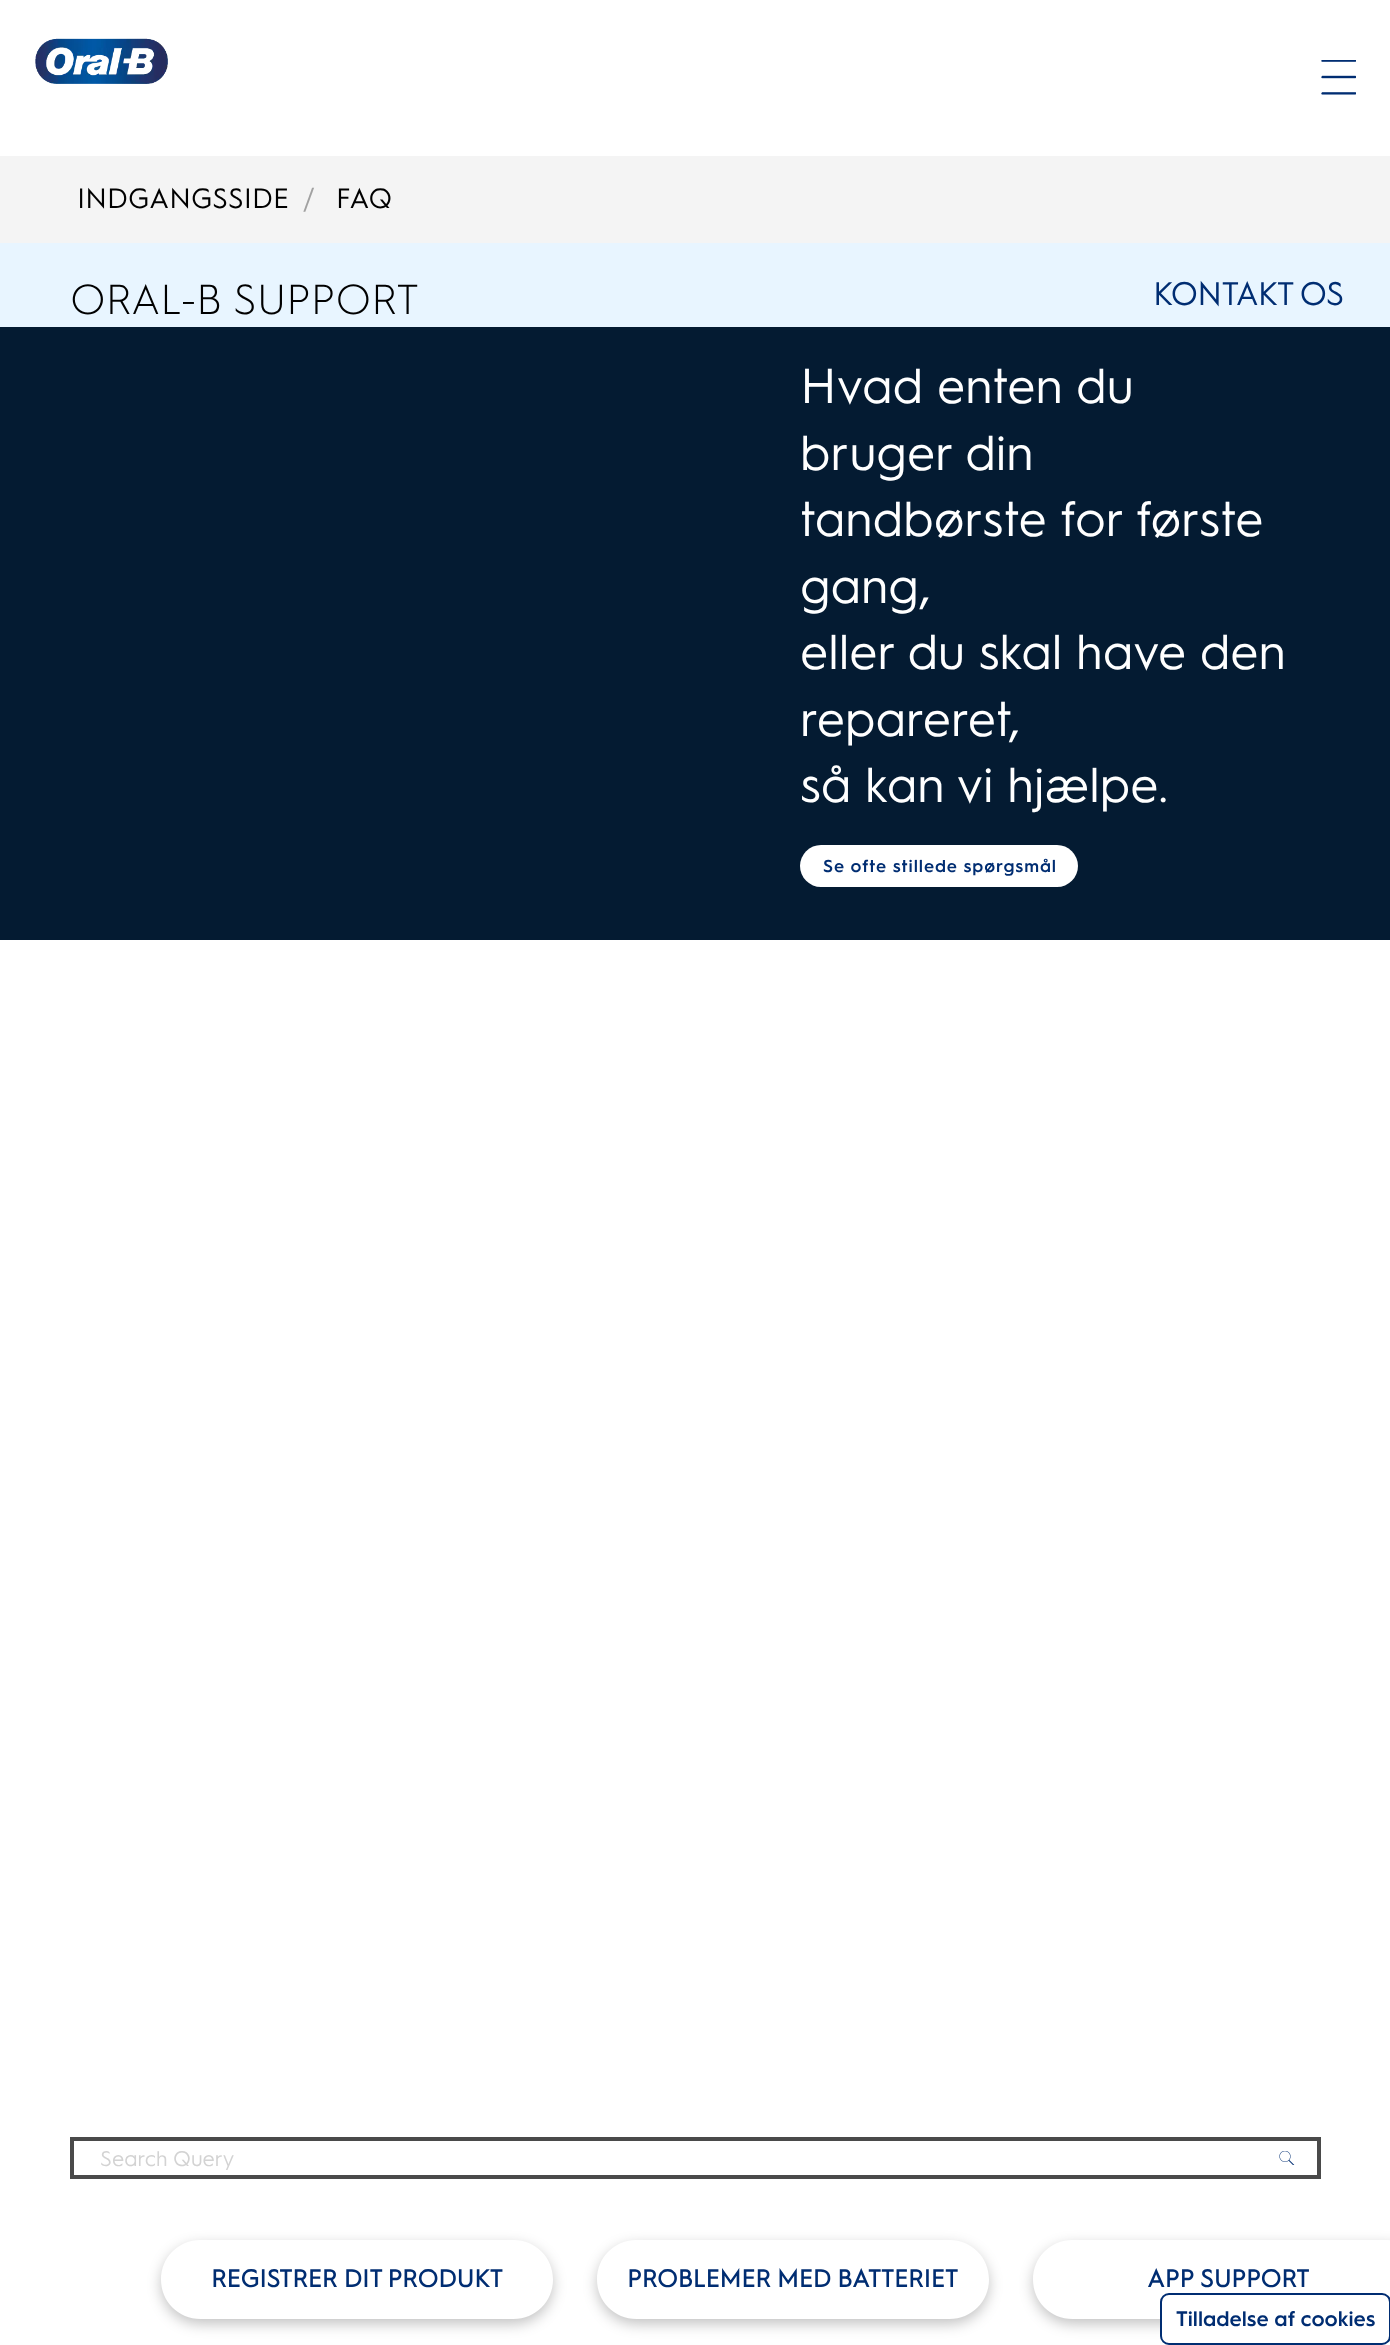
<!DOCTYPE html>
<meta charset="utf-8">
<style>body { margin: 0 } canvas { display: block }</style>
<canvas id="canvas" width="1390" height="2345"></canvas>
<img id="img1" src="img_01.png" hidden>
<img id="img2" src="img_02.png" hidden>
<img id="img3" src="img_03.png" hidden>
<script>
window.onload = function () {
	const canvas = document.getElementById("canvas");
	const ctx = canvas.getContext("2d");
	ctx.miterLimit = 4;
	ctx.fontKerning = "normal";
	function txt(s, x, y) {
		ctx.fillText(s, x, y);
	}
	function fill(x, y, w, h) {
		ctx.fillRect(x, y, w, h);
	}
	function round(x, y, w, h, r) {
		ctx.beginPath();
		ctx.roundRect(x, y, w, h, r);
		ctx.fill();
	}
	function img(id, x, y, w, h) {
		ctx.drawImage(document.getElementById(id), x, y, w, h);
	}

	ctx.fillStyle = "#FFFFFF";
	fill(0, 0, 1390, 2345);
	img("img1", 35, 38, 133, 46);
	img("img2", 1321, 60, 35, 35);
	ctx.fillStyle = "#F4F4F4";
	fill(0, 156, 1390, 87);
	ctx.fillStyle = "#E8F5FF";
	fill(0, 243, 1390, 84);
	ctx.fillStyle = "#041B32";
	fill(0, 327, 1390, 613);
	ctx.fillStyle = "#FFFFFF";
	round(800, 845, 278, 42, 21);
	ctx.strokeStyle = "#4A4A4A";
	ctx.lineWidth = 4;
	ctx.strokeRect(72, 2139, 1247, 38);
	img("img3", 1279, 2151, 16, 14);
	ctx.save();
	ctx.beginPath();
	ctx.moveTo(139, 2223);
	ctx.lineTo(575, 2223);
	ctx.lineTo(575, 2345);
	ctx.lineTo(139, 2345);
	ctx.closePath();
	ctx.moveTo(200.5, 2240);
	ctx.lineTo(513.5, 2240);
	ctx.bezierCurveTo(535.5, 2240, 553, 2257.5, 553, 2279.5);
	ctx.bezierCurveTo(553, 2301.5, 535.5, 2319, 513.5, 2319);
	ctx.lineTo(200.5, 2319);
	ctx.bezierCurveTo(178.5, 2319, 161, 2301.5, 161, 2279.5);
	ctx.bezierCurveTo(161, 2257.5, 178.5, 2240, 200.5, 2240);
	ctx.closePath();
	ctx.clip("evenodd");
	ctx.fillStyle = "rgba(0, 0, 0, 0.24)";
	ctx.filter = "blur(7px)";
	ctx.beginPath();
	ctx.roundRect(161, 2245, 392, 79, 39.5);
	ctx.fill();
	ctx.filter = "none";
	ctx.restore();
	ctx.save();
	ctx.beginPath();
	ctx.moveTo(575, 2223);
	ctx.lineTo(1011, 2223);
	ctx.lineTo(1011, 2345);
	ctx.lineTo(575, 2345);
	ctx.closePath();
	ctx.moveTo(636.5, 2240);
	ctx.lineTo(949.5, 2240);
	ctx.bezierCurveTo(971.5, 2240, 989, 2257.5, 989, 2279.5);
	ctx.bezierCurveTo(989, 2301.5, 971.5, 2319, 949.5, 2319);
	ctx.lineTo(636.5, 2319);
	ctx.bezierCurveTo(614.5, 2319, 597, 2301.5, 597, 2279.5);
	ctx.bezierCurveTo(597, 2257.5, 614.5, 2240, 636.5, 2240);
	ctx.closePath();
	ctx.clip("evenodd");
	ctx.fillStyle = "rgba(0, 0, 0, 0.24)";
	ctx.filter = "blur(7px)";
	ctx.beginPath();
	ctx.roundRect(597, 2245, 392, 79, 39.5);
	ctx.fill();
	ctx.filter = "none";
	ctx.restore();
	ctx.save();
	ctx.beginPath();
	ctx.moveTo(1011, 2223);
	ctx.lineTo(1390, 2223);
	ctx.lineTo(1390, 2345);
	ctx.lineTo(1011, 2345);
	ctx.closePath();
	ctx.moveTo(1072.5, 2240);
	ctx.lineTo(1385.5, 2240);
	ctx.bezierCurveTo(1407.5, 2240, 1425, 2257.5, 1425, 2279.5);
	ctx.bezierCurveTo(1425, 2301.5, 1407.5, 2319, 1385.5, 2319);
	ctx.lineTo(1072.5, 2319);
	ctx.bezierCurveTo(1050.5, 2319, 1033, 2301.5, 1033, 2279.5);
	ctx.bezierCurveTo(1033, 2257.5, 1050.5, 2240, 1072.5, 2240);
	ctx.closePath();
	ctx.clip("evenodd");
	ctx.fillStyle = "rgba(0, 0, 0, 0.24)";
	ctx.filter = "blur(7px)";
	ctx.beginPath();
	ctx.roundRect(1033, 2245, 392, 79, 39.5);
	ctx.fill();
	ctx.filter = "none";
	ctx.restore();
	ctx.beginPath();
	ctx.roundRect(1161, 2294, 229, 50, 8);
	ctx.fill();
	ctx.strokeStyle = "#002D72";
	ctx.lineWidth = 2;
	ctx.stroke();
	ctx.font = "28px 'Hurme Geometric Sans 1'";
	ctx.fillStyle = "#000000";
	txt("INDGANGSSIDE", 77, 208);
	ctx.fillStyle = "#A1A1A1";
	txt("/", 303, 208);
	ctx.fillStyle = "#000000";
	txt("FAQ", 336, 208);
	ctx.font = "300 42px 'Hurme Geometric Sans 1'";
	txt("ORAL-B SUPPORT", 70, 314);
	ctx.font = "bold 31.5px 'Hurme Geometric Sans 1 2'";
	ctx.fillStyle = "#002D72";
	txt("KONTAKT OS", 1153, 305);
	ctx.font = "49px 'Hurme Geometric Sans 1'";
	ctx.fillStyle = "#FFFFFF";
	txt("Hvad enten du", 800, 403);
	txt("bruger din", 800, 470);
	txt("tandbørste for første", 800, 536);
	txt("gang,", 800, 603);
	txt("eller du skal have den", 800, 669);
	txt("repareret,", 800, 736);
	txt("så kan vi hjælpe.", 800, 802);
	ctx.letterSpacing = "0.9px";
	ctx.font = "600 17.4px 'Hurme Geometric Sans 1'";
	ctx.fillStyle = "#002D72";
	txt("Se ofte stillede spørgsmål", 823, 872);
	ctx.letterSpacing = "0px";
	ctx.font = "21.25px 'Hurme Geometric Sans 1'";
	ctx.fillStyle = "#D3D3D3";
	txt("Search Query", 100, 2166);
	ctx.font = "bold 24.5px 'Hurme Geometric Sans 1'";
	ctx.fillStyle = "#002D72";
	txt("REGISTRER DIT PRODUKT", 211, 2287);
	txt("PROBLEMER MED BATTERIET", 627, 2287);
	txt("APP SUPPORT", 1147, 2287);
	ctx.font = "600 21px 'Hurme Geometric Sans 1'";
	txt("Tilladelse af cookies", 1176, 2326);
};
</script>
